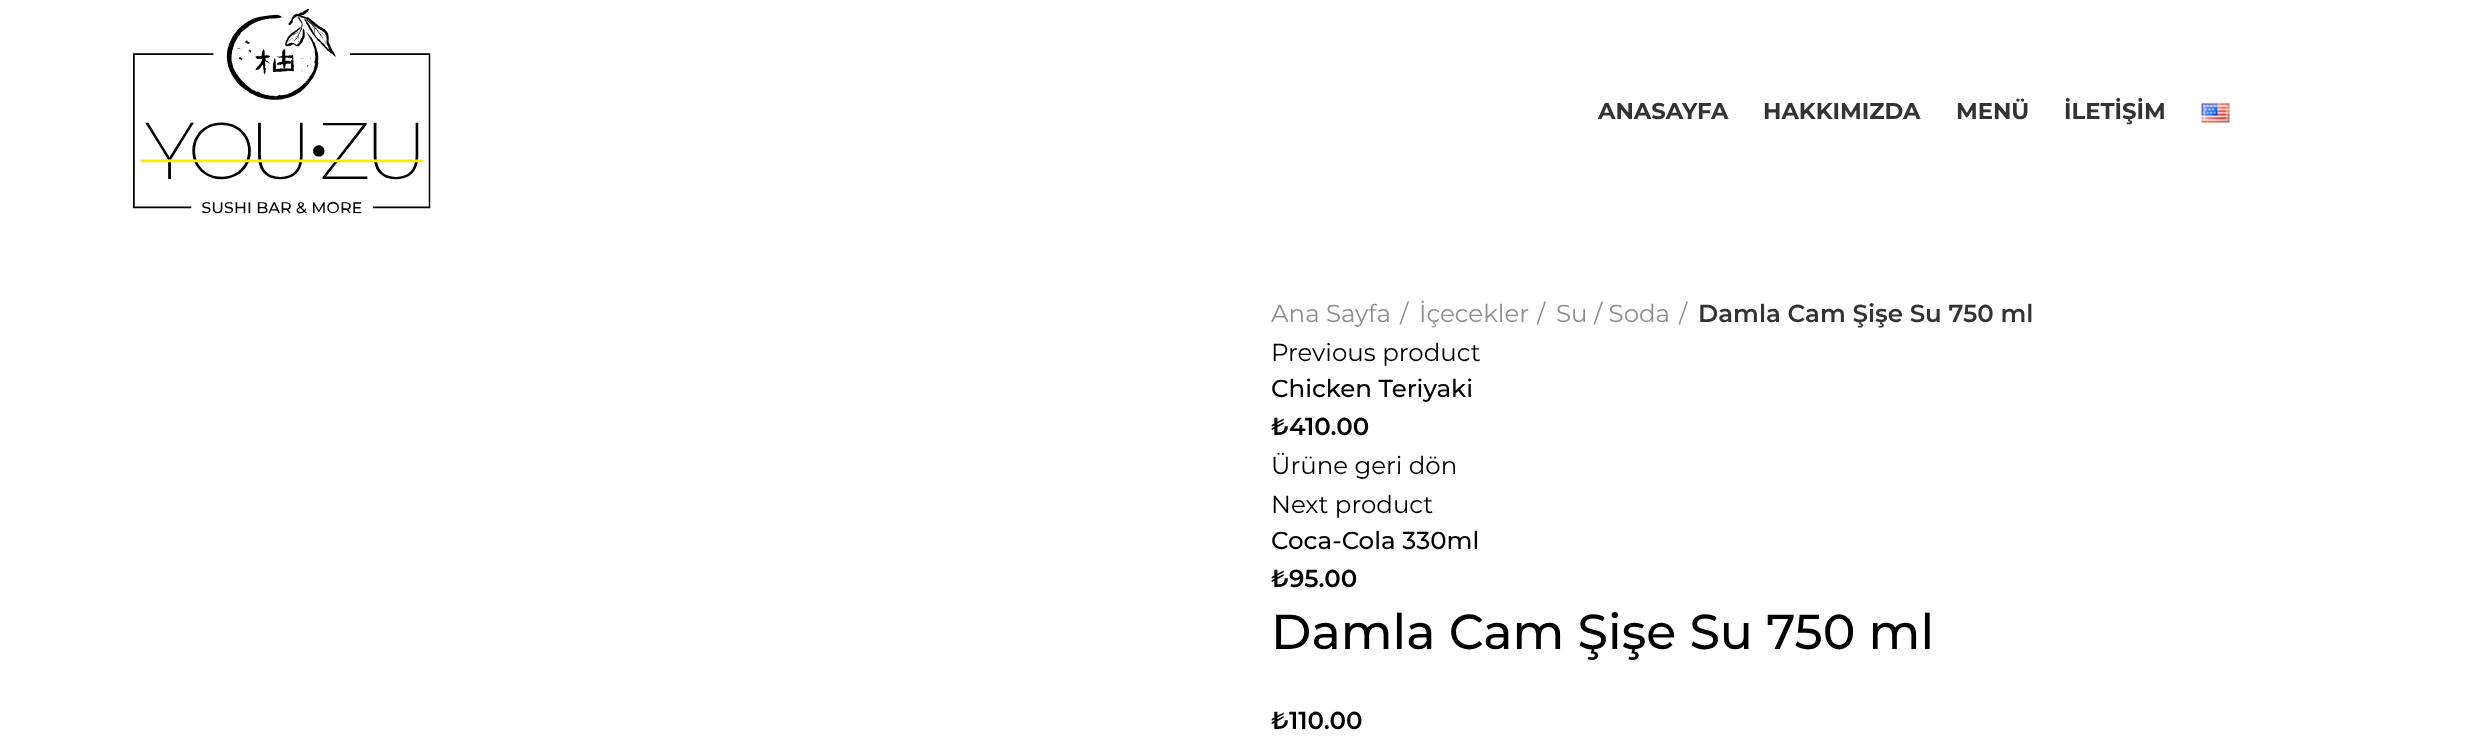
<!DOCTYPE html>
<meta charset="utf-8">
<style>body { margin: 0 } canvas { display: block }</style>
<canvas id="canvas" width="2489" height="746"></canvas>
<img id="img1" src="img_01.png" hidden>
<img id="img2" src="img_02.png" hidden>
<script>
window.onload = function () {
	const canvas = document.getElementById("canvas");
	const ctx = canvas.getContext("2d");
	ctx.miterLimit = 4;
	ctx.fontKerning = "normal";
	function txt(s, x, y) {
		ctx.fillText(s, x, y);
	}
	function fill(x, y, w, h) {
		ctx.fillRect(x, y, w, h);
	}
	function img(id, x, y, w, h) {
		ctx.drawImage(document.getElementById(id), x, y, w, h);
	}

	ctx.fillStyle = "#FFFFFF";
	fill(0, 0, 2489, 746);
	img("img1", 133, 9, 298, 205);
	img("img2", 2201, 102, 29, 21);
	ctx.font = "bold 22.75px Montserrat";
	ctx.fillStyle = "#333333";
	txt("ANASAYFA", 1598, 119);
	txt("HAKKIMIZDA", 1763, 119);
	txt("MENÜ", 1956, 119);
	txt("İLETİŞİM", 2064, 119);
	ctx.font = "24.5px Montserrat";
	ctx.fillStyle = "#8E8E8E";
	txt("Ana Sayfa", 1271, 322);
	txt("/", 1400, 322);
	txt("İçecekler", 1419, 322);
	txt("/", 1537, 322);
	txt("Su / Soda", 1556, 322);
	txt("/", 1679, 322);
	ctx.font = "600 24.5px Montserrat";
	ctx.fillStyle = "#333333";
	txt("Damla Cam Şişe Su 750 ml", 1698, 322);
	ctx.font = "24.5px Montserrat";
	ctx.fillStyle = "#000000";
	txt("Previous product", 1271, 361);
	ctx.font = "500 24.5px Montserrat";
	txt("Chicken Teriyaki", 1271, 397);
	ctx.font = "600 24.5px Montserrat";
	txt("₺410.00", 1271, 435);
	ctx.font = "24.5px Montserrat";
	txt("Ürüne geri dön", 1271, 474);
	txt("Next product", 1271, 513);
	ctx.font = "500 24.5px Montserrat";
	txt("Coca-Cola 330ml", 1271, 549);
	ctx.font = "600 24.5px Montserrat";
	txt("₺95.00", 1271, 587);
	ctx.font = "500 49px Montserrat";
	txt("Damla Cam Şişe Su 750 ml", 1271, 649);
	ctx.font = "600 24.5px Montserrat";
	txt("₺110.00", 1271, 729);
};
</script>
